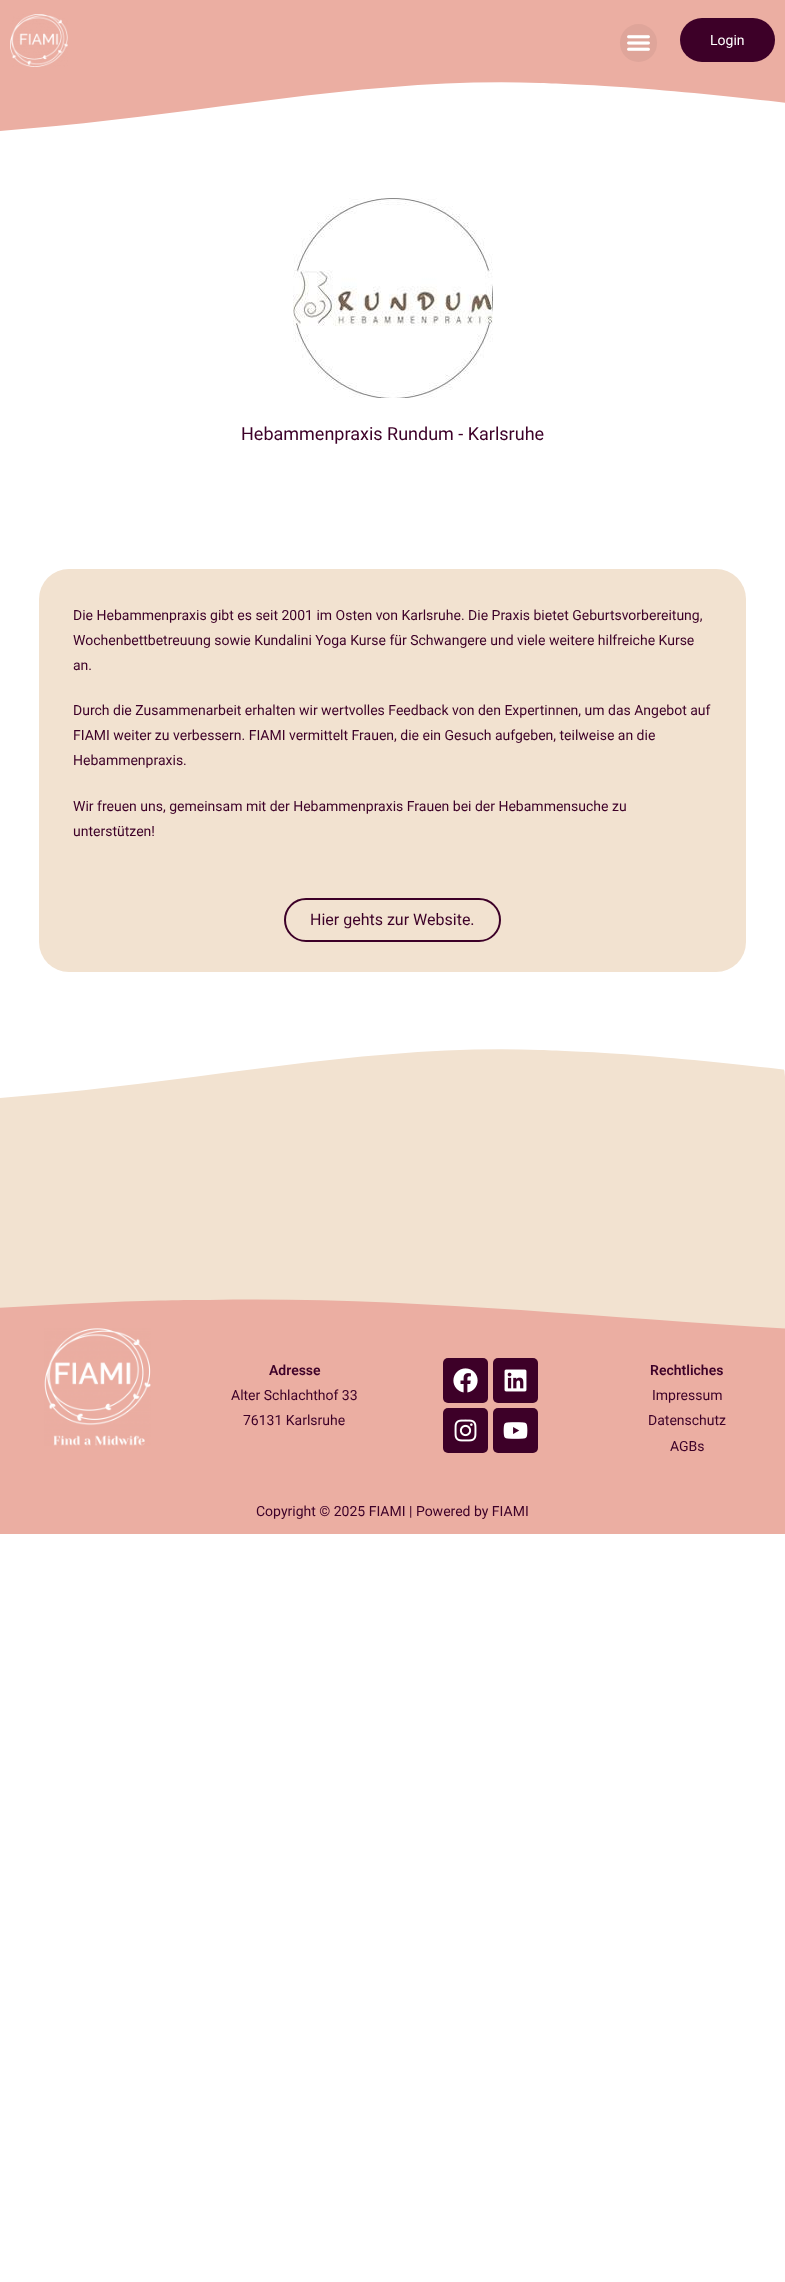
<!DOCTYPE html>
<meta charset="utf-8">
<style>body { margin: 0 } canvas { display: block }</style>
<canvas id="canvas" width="785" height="2282"></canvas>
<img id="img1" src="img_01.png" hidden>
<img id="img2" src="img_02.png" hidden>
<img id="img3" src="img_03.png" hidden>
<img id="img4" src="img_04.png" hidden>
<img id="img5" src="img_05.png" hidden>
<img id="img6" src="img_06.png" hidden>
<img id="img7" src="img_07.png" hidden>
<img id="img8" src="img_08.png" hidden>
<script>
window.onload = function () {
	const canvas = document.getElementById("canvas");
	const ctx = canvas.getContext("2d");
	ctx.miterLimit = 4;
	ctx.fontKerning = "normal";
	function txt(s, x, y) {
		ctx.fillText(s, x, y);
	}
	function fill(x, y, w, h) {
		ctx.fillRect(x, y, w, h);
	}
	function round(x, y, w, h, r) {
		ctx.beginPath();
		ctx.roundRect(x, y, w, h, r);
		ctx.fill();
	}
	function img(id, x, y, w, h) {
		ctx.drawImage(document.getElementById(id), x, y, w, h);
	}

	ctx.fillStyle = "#FFFFFF";
	fill(0, 0, 785, 2282);
	ctx.fillStyle = "#EBAEA2";
	fill(0, 0, 785, 79);
	img("img1", 10, 14, 58, 53);
	ctx.fillStyle = "#DFA59A";
	round(620, 24, 37, 38, 18.5);
	img("img2", 627, 35, 23, 16);
	ctx.fillStyle = "#3D0028";
	round(680, 18, 95, 44, 22);
	ctx.fillStyle = "#EBAEA2";
	ctx.beginPath();
	ctx.moveTo(540, 83);
	ctx.bezierCurveTo(378, 77, 218, 111, 56, 126);
	ctx.bezierCurveTo(-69, 138, -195, 143, -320, 139);
	ctx.bezierCurveTo(-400, 137, -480, 132, -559, 122);
	ctx.lineTo(-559, 79);
	ctx.lineTo(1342, 79);
	ctx.lineTo(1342, 98);
	ctx.bezierCurveTo(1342, 98, 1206, 118, 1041, 117);
	ctx.bezierCurveTo(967, 116, 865, 113, 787, 103);
	ctx.bezierCurveTo(746, 98, 687, 92, 635, 88);
	ctx.bezierCurveTo(583, 84, 560, 84, 540, 83);
	ctx.closePath();
	ctx.fill();
	img("img3", 293, 198, 200, 200);
	ctx.fillStyle = "#F2E2D0";
	round(39, 569, 707, 403, 30);
	ctx.beginPath();
	ctx.roundRect(285, 899, 215, 42, 21);
	ctx.strokeStyle = "#3D0028";
	ctx.lineWidth = 2;
	ctx.stroke();
	ctx.beginPath();
	ctx.roundRect(0, 1047, 785, 311, [30, 30, 0, 0]);
	ctx.fill();
	ctx.fillStyle = "#FFFFFF";
	ctx.beginPath();
	ctx.moveTo(540, 1050);
	ctx.bezierCurveTo(378, 1044, 218, 1078, 56, 1093);
	ctx.bezierCurveTo(-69, 1105, -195, 1110, -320, 1106);
	ctx.bezierCurveTo(-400, 1104, -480, 1099, -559, 1089);
	ctx.lineTo(-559, 1046);
	ctx.lineTo(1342, 1046);
	ctx.lineTo(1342, 1065);
	ctx.bezierCurveTo(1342, 1065, 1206, 1085, 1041, 1084);
	ctx.bezierCurveTo(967, 1083, 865, 1080, 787, 1070);
	ctx.bezierCurveTo(746, 1065, 687, 1059, 635, 1055);
	ctx.bezierCurveTo(583, 1051, 560, 1051, 540, 1050);
	ctx.closePath();
	ctx.fill();
	ctx.fillStyle = "#EBAEA2";
	fill(0, 1299, 785, 235);
	ctx.fillStyle = "#F2E2D0";
	ctx.beginPath();
	ctx.moveTo(209, 1300);
	ctx.bezierCurveTo(410, 1296, 609, 1319, 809, 1330);
	ctx.bezierCurveTo(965, 1338, 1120, 1341, 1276, 1339);
	ctx.bezierCurveTo(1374, 1337, 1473, 1334, 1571, 1327);
	ctx.lineTo(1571, 1297);
	ctx.lineTo(-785, 1297);
	ctx.lineTo(-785, 1310);
	ctx.bezierCurveTo(-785, 1310, -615, 1324, -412, 1323);
	ctx.bezierCurveTo(-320, 1323, -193, 1320, -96, 1314);
	ctx.bezierCurveTo(-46, 1310, 27, 1306, 92, 1303);
	ctx.bezierCurveTo(156, 1300, 185, 1300, 209, 1300);
	ctx.closePath();
	ctx.fill();
	img("img4", 44, 1328, 107, 118);
	ctx.fillStyle = "#3D0028";
	round(443, 1358, 45, 45, 5);
	img("img5", 453, 1368, 25, 25);
	round(493, 1358, 45, 45, 5);
	img("img6", 504, 1369, 23, 23);
	round(443, 1408, 45, 45, 5);
	img("img7", 454, 1419, 23, 23);
	round(493, 1408, 45, 45, 5);
	img("img8", 503, 1422, 25, 17);
	ctx.font = "14px Roboto";
	ctx.fillStyle = "#FFFFFF";
	txt("Login", 710, 45);
	ctx.font = "18px Roboto";
	ctx.fillStyle = "#3D0028";
	txt("Hebammenpraxis Rundum - Karlsruhe", 241, 440);
	ctx.font = "14px Roboto";
	txt("Die Hebammenpraxis gibt es seit 2001 im Osten von Karlsruhe. Die Praxis bietet Geburtsvorbereitung,", 73, 620);
	txt("Wochenbettbetreuung sowie Kundalini Yoga Kurse für Schwangere und viele weitere hilfreiche Kurse", 73, 645);
	txt("an.", 73, 670);
	txt("Durch die Zusammenarbeit erhalten wir wertvolles Feedback von den Expertinnen, um das Angebot auf", 73, 715);
	txt("FIAMI weiter zu verbessern. FIAMI vermittelt Frauen, die ein Gesuch aufgeben, teilweise an die", 73, 740);
	txt("Hebammenpraxis.", 73, 765);
	txt("Wir freuen uns, gemeinsam mit der Hebammenpraxis Frauen bei der Hebammensuche zu", 73, 811);
	txt("unterstützen!", 73, 836);
	ctx.font = "16px Roboto";
	txt("Hier gehts zur Website.", 310, 925);
	ctx.font = "600 14px Roboto";
	txt("Adresse", 269, 1375);
	ctx.font = "14px Roboto";
	txt("Alter Schlachthof 33", 231, 1400);
	txt("76131 Karlsruhe", 243, 1425);
	ctx.font = "600 14px Roboto";
	txt("Rechtliches", 650, 1375);
	ctx.font = "14px Roboto";
	txt("Impressum", 652, 1400);
	txt("Datenschutz", 648, 1425);
	txt("AGBs", 670, 1451);
	txt("Copyright © 2025 FIAMI | Powered by FIAMI", 256, 1516);
};
</script>
